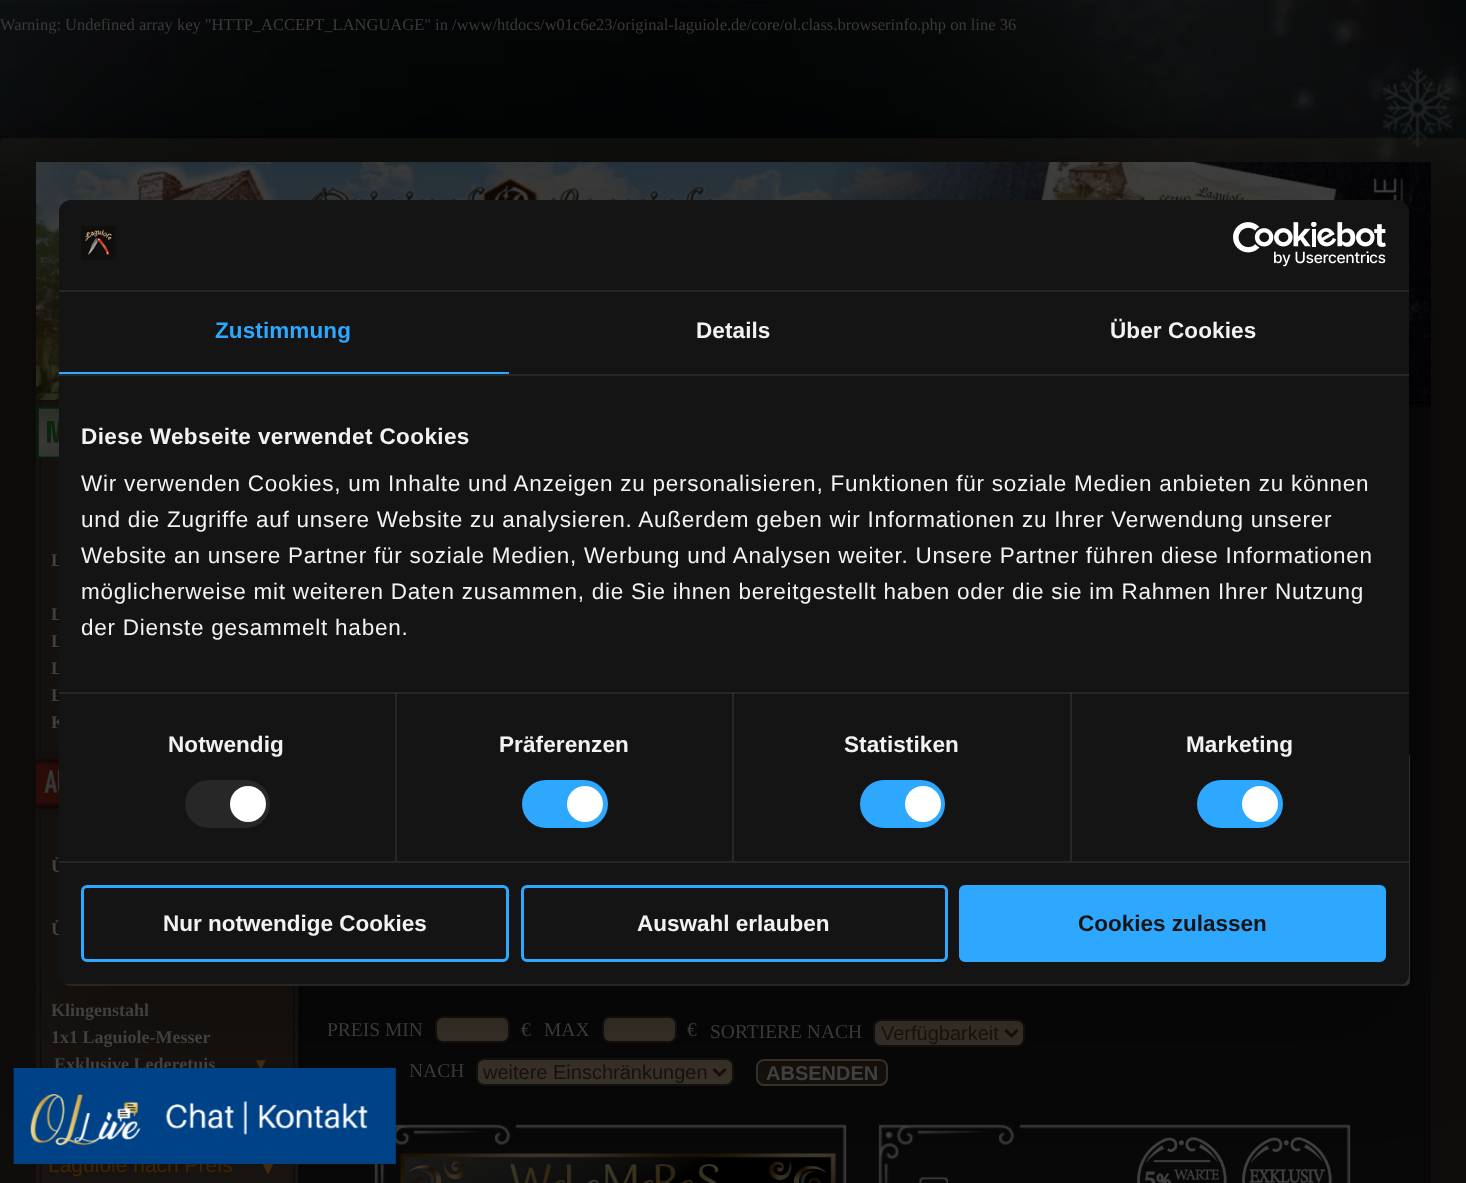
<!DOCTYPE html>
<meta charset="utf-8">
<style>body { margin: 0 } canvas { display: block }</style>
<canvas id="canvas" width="1466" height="1183"></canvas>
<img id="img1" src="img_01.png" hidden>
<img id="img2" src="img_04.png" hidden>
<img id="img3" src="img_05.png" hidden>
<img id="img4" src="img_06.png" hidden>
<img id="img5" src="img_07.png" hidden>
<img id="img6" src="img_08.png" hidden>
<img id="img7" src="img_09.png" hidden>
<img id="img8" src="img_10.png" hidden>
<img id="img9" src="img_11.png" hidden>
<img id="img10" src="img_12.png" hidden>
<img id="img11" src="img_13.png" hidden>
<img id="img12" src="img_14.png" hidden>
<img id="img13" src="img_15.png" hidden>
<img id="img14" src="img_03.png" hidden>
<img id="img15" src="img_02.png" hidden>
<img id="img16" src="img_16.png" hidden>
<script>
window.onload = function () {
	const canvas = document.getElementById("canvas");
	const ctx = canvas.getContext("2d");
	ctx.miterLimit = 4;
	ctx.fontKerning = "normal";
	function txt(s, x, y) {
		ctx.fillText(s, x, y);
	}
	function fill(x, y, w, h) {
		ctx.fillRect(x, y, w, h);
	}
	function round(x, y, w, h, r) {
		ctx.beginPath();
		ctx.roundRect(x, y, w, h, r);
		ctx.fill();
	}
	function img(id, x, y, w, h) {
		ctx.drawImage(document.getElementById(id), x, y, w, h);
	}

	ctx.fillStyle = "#000000";
	fill(0, 0, 1466, 1183);
	img("img1", 0, 0, 1466, 237);
	img("img2", 0, 138, 1466, 1045);
	img("img3", 36, 162, 1395, 239);
	ctx.fillStyle = "#080808";
	fill(321, 401, 1110, 782);
	img("img4", 36, 400, 1395, 7);
	img("img5", 36, 400, 285, 783);
	img("img6", 36, 406, 23, 54);
	img("img7", 36, 751, 23, 65);
	ctx.fillStyle = "#3B342B";
	round(321, 752, 1089, 234, 5);
	ctx.beginPath();
	ctx.roundRect(436, 1017, 73, 25, 7);
	ctx.fill();
	ctx.strokeStyle = "#16110D";
	ctx.lineWidth = 2;
	ctx.stroke();
	ctx.beginPath();
	ctx.roundRect(603, 1017, 73, 25, 7);
	ctx.fill();
	ctx.stroke();
	ctx.beginPath();
	ctx.roundRect(874, 1020, 150, 26, 7);
	ctx.fill();
	ctx.stroke();
	ctx.beginPath();
	ctx.moveTo(1005.5, 1030);
	ctx.lineTo(1011.5, 1036);
	ctx.lineTo(1017.5, 1030);
	ctx.lineWidth = 3;
	ctx.stroke();
	ctx.beginPath();
	ctx.roundRect(477, 1059, 256, 26, 7);
	ctx.fill();
	ctx.lineWidth = 2;
	ctx.stroke();
	ctx.beginPath();
	ctx.moveTo(713.5, 1069);
	ctx.lineTo(719.5, 1075);
	ctx.lineTo(725.5, 1069);
	ctx.lineWidth = 3;
	ctx.stroke();
	ctx.fillStyle = "#16110D";
	ctx.beginPath();
	ctx.roundRect(757, 1060, 130, 25, 7);
	ctx.fill();
	ctx.strokeStyle = "#3B342B";
	ctx.lineWidth = 2;
	ctx.stroke();
	img("img8", 374, 1124, 473, 59);
	img("img9", 400, 1153, 436, 30);
	img("img10", 878, 1124, 473, 59);
	img("img11", 919, 1177, 29, 6);
	img("img12", 1136, 1137, 91, 46);
	img("img13", 1241, 1137, 91, 46);
	ctx.fillStyle = "rgba(0, 0, 0, 0.3)";
	ctx.filter = "blur(51px)";
	ctx.beginPath();
	ctx.roundRect(59, 248, 1350, 786, 12);
	ctx.fill();
	ctx.filter = "none";
	ctx.font = "16.5px Liberation Serif";
	ctx.fillStyle = "#3B3A3A";
	txt("Warning: Undefined array key \"HTTP_ACCEPT_LANGUAGE\" in /www/htdocs/w01c6e23/original-laguiole.de/core/ol.class.browserinfo.php on line 36", 0, 30);
	ctx.font = "bold 18px Liberation Serif";
	ctx.fillStyle = "#404040";
	txt("L", 51, 566);
	txt("L", 51, 620);
	txt("L", 51, 647);
	txt("L", 51, 674);
	txt("L", 51, 701);
	txt("K", 51, 728);
	txt("Ü", 51, 872);
	txt("Ü", 51, 935);
	ctx.fillStyle = "#141414";
	round(59, 200, 1350, 786, 12);
	ctx.fillStyle = "#2EA7FF";
	ctx.beginPath();
	ctx.roundRect(960.5, 886.5, 424, 74, 4.5);
	ctx.fill();
	ctx.strokeStyle = "#2EA7FF";
	ctx.lineWidth = 3;
	ctx.stroke();
	ctx.font = "bold 22.5px Liberation Sans";
	ctx.fillStyle = "#141414";
	txt("Cookies zulassen", 1078, 931);
	ctx.beginPath();
	ctx.roundRect(522.5, 886.5, 424, 74, 4.5);
	ctx.stroke();
	ctx.fillStyle = "#F2F2F2";
	txt("Auswahl erlauben", 637, 931);
	ctx.beginPath();
	ctx.roundRect(82.5, 886.5, 425, 74, 4.5);
	ctx.stroke();
	txt("Nur notwendige Cookies", 163, 931);
	ctx.save();
	ctx.beginPath();
	ctx.roundRect(59, 200, 1350, 786, 12);
	ctx.clip();
	ctx.fillStyle = "rgba(255, 255, 255, 0.08)";
	fill(59, 984, 1350, 2);
	ctx.restore();
	ctx.fillStyle = "#2EA7FF";
	round(1197, 780, 86, 48, 24);
	ctx.fillStyle = "#FFFFFF";
	ctx.beginPath();
	ctx.arc(1260, 804, 18, 0, Math.PI * 2);
	ctx.fill();
	ctx.fillStyle = "#2EA7FF";
	round(860, 780, 85, 48, 24);
	ctx.fillStyle = "#FFFFFF";
	ctx.beginPath();
	ctx.arc(923, 804, 18, 0, Math.PI * 2);
	ctx.fill();
	ctx.fillStyle = "#2EA7FF";
	round(522, 780, 86, 48, 24);
	ctx.fillStyle = "#FFFFFF";
	ctx.beginPath();
	ctx.arc(585, 804, 18, 0, Math.PI * 2);
	ctx.fill();
	ctx.fillStyle = "#272727";
	round(185, 780, 85, 48, 24);
	ctx.fillStyle = "#FFFFFF";
	ctx.beginPath();
	ctx.arc(248, 804, 18, 0, Math.PI * 2);
	ctx.fill();
	ctx.letterSpacing = "0.75px";
	ctx.font = "22.5px Liberation Sans";
	ctx.fillStyle = "#F2F2F2";
	txt("der Dienste gesammelt haben.", 81, 635);
	txt("möglicherweise mit weiteren Daten zusammen, die Sie ihnen bereitgestellt haben oder die sie im Rahmen Ihrer Nutzung", 81, 599);
	txt("Website an unsere Partner für soziale Medien, Werbung und Analysen weiter. Unsere Partner führen diese Informationen", 81, 563);
	txt("und die Zugriffe auf unsere Website zu analysieren. Außerdem geben wir Informationen zu Ihrer Verwendung unserer", 81, 527);
	txt("Wir verwenden Cookies, um Inhalte und Anzeigen zu personalisieren, Funktionen für soziale Medien anbieten zu können", 81, 491);
	ctx.letterSpacing = "0.4px";
	ctx.font = "bold 22.5px Liberation Sans";
	txt("Diese Webseite verwendet Cookies", 81, 444);
	ctx.fillStyle = "#272727";
	fill(1070, 693, 2, 168);
	fill(732, 693, 2, 168);
	fill(395, 693, 2, 168);
	ctx.fillStyle = "rgba(255, 255, 255, 0.08)";
	fill(59, 692, 1350, 2);
	ctx.letterSpacing = "0.1px";
	ctx.fillStyle = "#F2F2F2";
	txt("Über Cookies", 1110, 338);
	txt("Details", 696, 338);
	ctx.fillStyle = "#2EA7FF";
	txt("Zustimmung", 215, 338);
	fill(59, 372, 450, 2);
	ctx.fillStyle = "#272727";
	fill(59, 374, 1350, 2);
	ctx.fillStyle = "#F2F2F2";
	txt("Marketing", 1186, 752);
	txt("Statistiken", 844, 752);
	txt("Präferenzen", 499, 752);
	txt("Notwendig", 168, 752);
	ctx.fillStyle = "#272727";
	fill(59, 861, 1350, 2);
	img("img14", 1233, 222, 153, 45);
	img("img15", 81, 226, 35, 34);
	fill(59, 290, 1350, 2);
	ctx.letterSpacing = "0px";
	ctx.font = "bold 18px Liberation Serif";
	ctx.fillStyle = "#404040";
	txt("Klingenstahl", 51, 1016);
	txt("1x1 Laguiole-Messer", 51, 1043);
	txt("Exklusive Lederetuis", 54, 1070);
	ctx.font = "bold 18px DejaVu Sans";
	ctx.fillStyle = "#3D2D11";
	txt("▾", 256, 1070);
	ctx.font = "21px Liberation Sans";
	ctx.fillStyle = "#402600";
	txt("Laguiole nach Preis", 48, 1172);
	ctx.font = "24px DejaVu Sans";
	ctx.fillStyle = "#3D2D11";
	txt("▾", 262, 1175);
	ctx.font = "19.5px Liberation Serif";
	ctx.fillStyle = "#3B3A3A";
	txt("PREIS MIN", 327, 1036);
	txt("€", 521, 1036);
	txt("MAX", 544, 1036);
	txt("€", 687, 1036);
	txt("SORTIERE NACH", 710, 1038);
	ctx.font = "20px Liberation Sans";
	ctx.fillStyle = "#16110D";
	txt("Verfügbarkeit", 881, 1040);
	ctx.font = "19.5px Liberation Serif";
	ctx.fillStyle = "#3B3A3A";
	txt("NACH", 409, 1077);
	ctx.font = "20px Liberation Sans";
	ctx.fillStyle = "#16110D";
	txt("weitere Einschränkungen", 483, 1079);
	ctx.font = "bold 20px Liberation Sans";
	ctx.fillStyle = "#404040";
	txt("ABSENDEN", 766, 1080);
	img("img16", 13, 1068, 383, 96);
};
</script>
